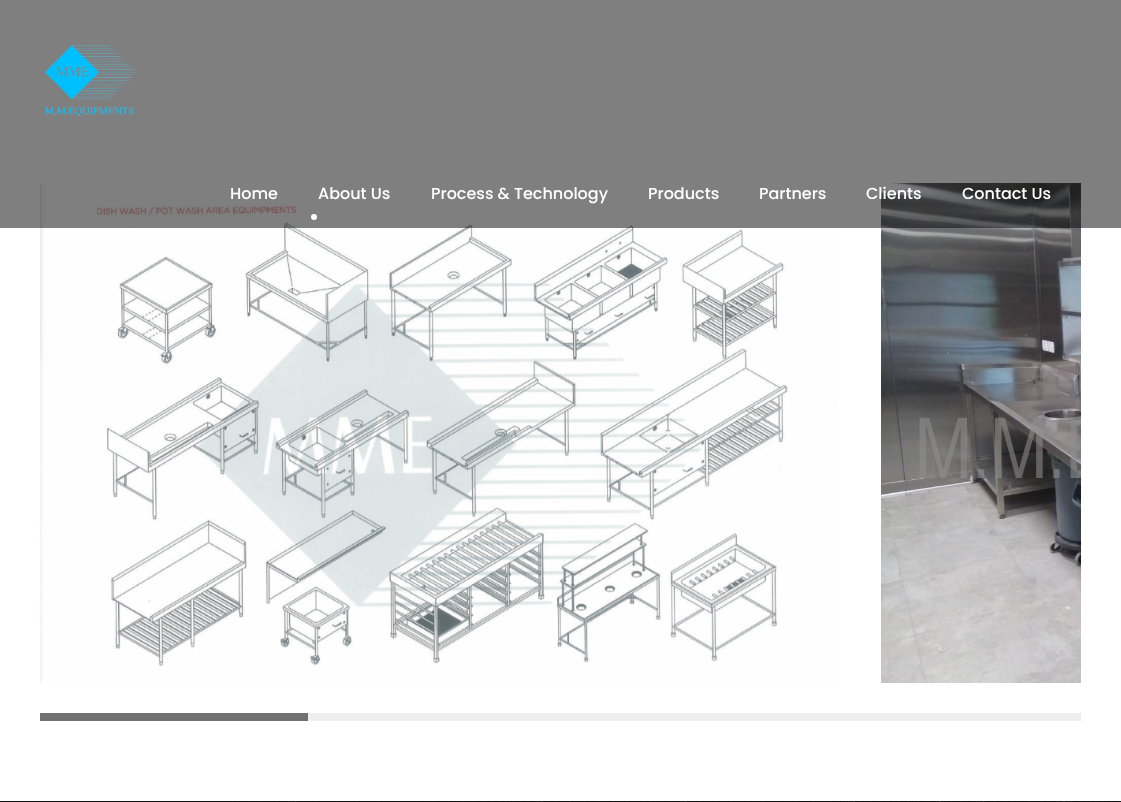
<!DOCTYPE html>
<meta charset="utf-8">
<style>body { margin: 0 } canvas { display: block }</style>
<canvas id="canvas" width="1121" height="802"></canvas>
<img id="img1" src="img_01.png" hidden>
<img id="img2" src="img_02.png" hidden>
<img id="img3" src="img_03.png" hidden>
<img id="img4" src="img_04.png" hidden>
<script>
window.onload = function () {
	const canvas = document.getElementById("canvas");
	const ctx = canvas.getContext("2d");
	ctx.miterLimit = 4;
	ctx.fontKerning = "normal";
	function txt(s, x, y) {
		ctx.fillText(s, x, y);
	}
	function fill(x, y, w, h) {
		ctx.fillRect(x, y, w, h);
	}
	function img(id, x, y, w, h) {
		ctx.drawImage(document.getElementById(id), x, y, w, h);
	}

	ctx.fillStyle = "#FFFFFF";
	fill(0, 0, 1121, 802);
	img("img1", 40, 183, 797, 500);
	img("img2", 881, 183, 200, 500);
	ctx.fillStyle = "#EEEEEE";
	fill(308, 713, 773, 8);
	ctx.fillStyle = "#717171";
	fill(40, 713, 268, 8);
	ctx.fillStyle = "rgba(0, 0, 0, 0.5)";
	fill(0, 0, 1121, 228);
	img("img3", 45, 45, 92, 72);
	ctx.fillStyle = "#FFFFFF";
	ctx.beginPath();
	ctx.arc(314, 217, 3, 0, Math.PI * 2);
	ctx.fill();
	img("img4", 0, 801, 1121, 1);
	ctx.font = "500 16px Poppins";
	txt("Home", 230, 199);
	txt("About Us", 318, 199);
	txt("Process & Technology", 431, 199);
	txt("Products", 648, 199);
	txt("Partners", 759, 199);
	txt("Clients", 866, 199);
	txt("Contact Us", 962, 199);
};
</script>
